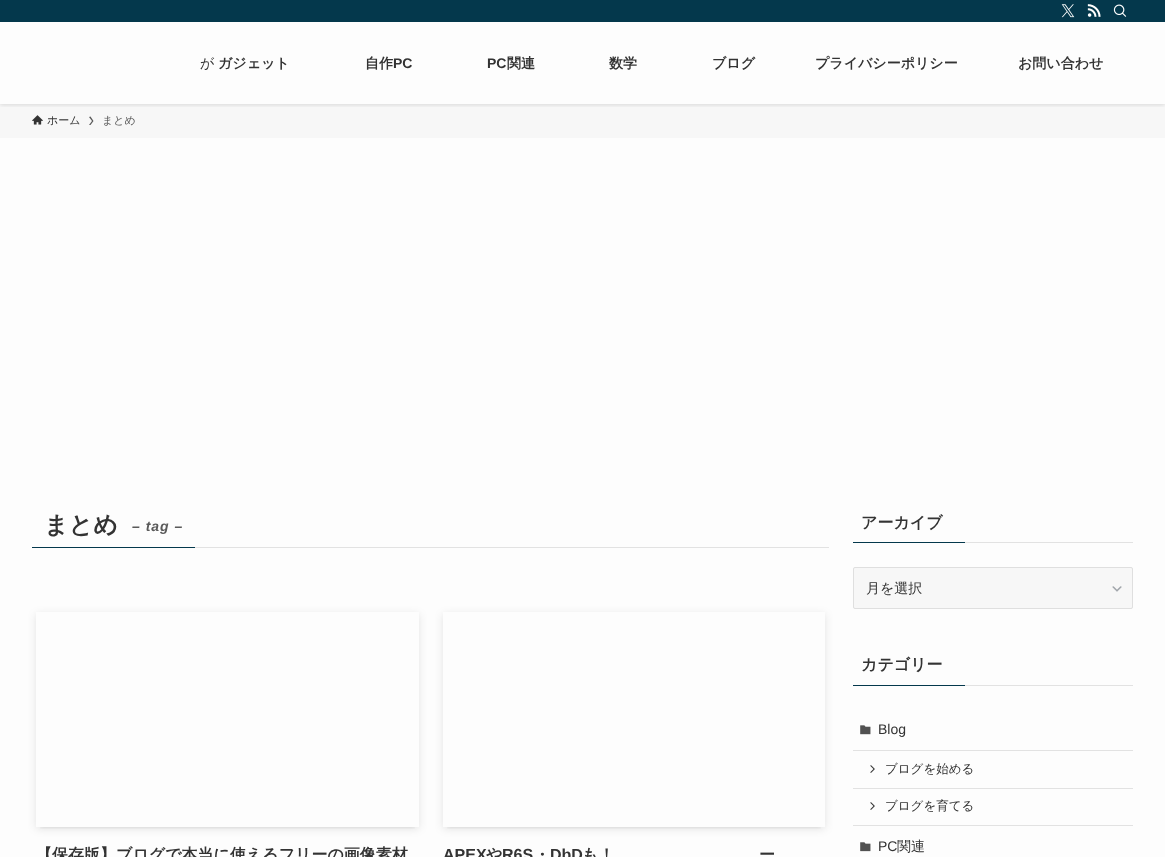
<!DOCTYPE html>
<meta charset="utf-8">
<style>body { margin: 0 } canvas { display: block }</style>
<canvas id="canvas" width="1165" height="857"></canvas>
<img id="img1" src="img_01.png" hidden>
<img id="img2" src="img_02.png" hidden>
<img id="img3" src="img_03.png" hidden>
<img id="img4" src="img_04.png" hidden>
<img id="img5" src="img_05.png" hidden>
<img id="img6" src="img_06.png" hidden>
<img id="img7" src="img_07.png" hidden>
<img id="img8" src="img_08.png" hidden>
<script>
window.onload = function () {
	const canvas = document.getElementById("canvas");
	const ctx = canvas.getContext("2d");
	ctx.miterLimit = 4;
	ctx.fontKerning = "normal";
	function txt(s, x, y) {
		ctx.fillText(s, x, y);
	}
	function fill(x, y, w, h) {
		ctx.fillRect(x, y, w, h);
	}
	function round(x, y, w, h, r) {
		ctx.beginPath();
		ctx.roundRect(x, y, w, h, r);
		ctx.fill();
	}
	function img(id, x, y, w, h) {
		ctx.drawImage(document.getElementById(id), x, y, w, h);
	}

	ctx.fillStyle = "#FDFDFD";
	fill(0, 0, 1165, 857);
	ctx.fillStyle = "#F7F7F7";
	fill(0, 104, 1165, 34);
	ctx.save();
	ctx.beginPath();
	ctx.rect(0, 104, 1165, 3);
	ctx.clip();
	ctx.fillStyle = "rgba(0, 0, 0, 0.12)";
	ctx.filter = "blur(2px)";
	ctx.beginPath();
	ctx.rect(0, 1, 1165, 104);
	ctx.fill();
	ctx.filter = "none";
	ctx.restore();
	ctx.fillStyle = "#04384C";
	fill(0, 0, 1165, 22);
	img("img1", 1061, 4, 14, 14);
	img("img2", 1087, 4, 14, 13);
	img("img3", 1113, 4, 14, 13);
	img("img4", 32, 115, 11, 10);
	ctx.fillStyle = "#5A5A5A";
	ctx.beginPath();
	ctx.moveTo(90.5, 116.5);
	ctx.lineTo(89, 117);
	ctx.lineTo(92, 121);
	ctx.lineTo(89, 125);
	ctx.lineTo(90.5, 125);
	ctx.lineTo(93.5, 121);
	ctx.closePath();
	ctx.fill();
	ctx.fillStyle = "#E2E2E2";
	fill(195, 547, 634, 1);
	ctx.fillStyle = "#04384C";
	fill(32, 547, 163, 1);
	ctx.save();
	ctx.beginPath();
	ctx.rect(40, 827, 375, 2);
	ctx.clip();
	ctx.fillStyle = "rgba(0, 0, 0, 0.1)";
	ctx.filter = "blur(2px)";
	ctx.beginPath();
	ctx.rect(40, 620, 375, 207);
	ctx.fill();
	ctx.filter = "none";
	ctx.restore();
	ctx.save();
	ctx.beginPath();
	ctx.moveTo(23, 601);
	ctx.lineTo(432, 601);
	ctx.lineTo(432, 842);
	ctx.lineTo(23, 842);
	ctx.closePath();
	ctx.moveTo(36, 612);
	ctx.lineTo(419, 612);
	ctx.lineTo(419, 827);
	ctx.lineTo(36, 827);
	ctx.closePath();
	ctx.clip("evenodd");
	ctx.fillStyle = "rgba(0, 0, 0, 0.1)";
	ctx.filter = "blur(4px)";
	ctx.beginPath();
	ctx.rect(36, 614, 383, 215);
	ctx.fill();
	ctx.filter = "none";
	ctx.restore();
	ctx.save();
	ctx.beginPath();
	ctx.rect(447, 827, 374, 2);
	ctx.clip();
	ctx.fillStyle = "rgba(0, 0, 0, 0.1)";
	ctx.filter = "blur(2px)";
	ctx.beginPath();
	ctx.rect(447, 620, 374, 207);
	ctx.fill();
	ctx.filter = "none";
	ctx.restore();
	ctx.save();
	ctx.beginPath();
	ctx.moveTo(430, 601);
	ctx.lineTo(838, 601);
	ctx.lineTo(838, 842);
	ctx.lineTo(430, 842);
	ctx.closePath();
	ctx.moveTo(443, 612);
	ctx.lineTo(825, 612);
	ctx.lineTo(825, 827);
	ctx.lineTo(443, 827);
	ctx.closePath();
	ctx.clip("evenodd");
	ctx.fillStyle = "rgba(0, 0, 0, 0.1)";
	ctx.filter = "blur(4px)";
	ctx.beginPath();
	ctx.rect(443, 614, 382, 215);
	ctx.fill();
	ctx.filter = "none";
	ctx.restore();
	fill(853, 542, 112, 1);
	ctx.fillStyle = "#E2E2E2";
	fill(965, 542, 168, 1);
	ctx.fillStyle = "#F7F7F7";
	round(853, 567, 280, 42, 2);
	img("img5", 1112, 586, 10, 6);
	ctx.beginPath();
	ctx.roundRect(853.5, 567.5, 279, 41, 1.5);
	ctx.strokeStyle = "#DFDFDF";
	ctx.stroke();
	ctx.fillStyle = "#04384C";
	fill(853, 685, 112, 1);
	ctx.fillStyle = "#E2E2E2";
	fill(965, 685, 168, 1);
	fill(853, 750, 280, 1);
	img("img6", 860, 725, 11, 10);
	fill(853, 788, 280, 1);
	img("img7", 870, 765, 5, 8);
	fill(853, 825, 280, 1);
	img("img7", 870, 802, 5, 8);
	img("img8", 860, 842, 11, 10);
	ctx.font = "500 14px WenQuanYi Zen Hei";
	ctx.fillStyle = "#333333";
	txt("が", 200, 68);
	ctx.font = "bold 14px WenQuanYi Zen Hei";
	txt("ガジェット", 218, 68);
	txt("自作", 365, 68);
	ctx.font = "bold 14px Liberation Sans";
	txt("PC", 393, 68);
	txt("PC", 487, 68);
	ctx.font = "bold 14px WenQuanYi Zen Hei";
	txt("関連", 507, 68);
	txt("数学", 609, 68);
	txt("ブログ", 712, 68);
	txt("プライバシーポリシー", 815, 68);
	txt("お問い合わせ", 1018, 68);
	ctx.font = "500 11px WenQuanYi Zen Hei";
	txt("ホーム", 47, 124);
	ctx.fillStyle = "#5A5A5A";
	txt("まとめ", 102, 124);
	ctx.font = "bold 24px WenQuanYi Zen Hei";
	ctx.fillStyle = "#333333";
	txt("まとめ", 44, 533);
	ctx.letterSpacing = "1px";
	ctx.font = "italic bold 14px Liberation Sans";
	ctx.fillStyle = "#5A5A5A";
	txt("– tag –", 132, 531);
	ctx.letterSpacing = "0px";
	ctx.font = "bold 16px WenQuanYi Zen Hei";
	ctx.fillStyle = "#333333";
	txt("【保存版】ブログで本当に使えるフリーの画像素材", 36, 860);
	ctx.font = "bold 16px Liberation Sans";
	txt("APEX", 443, 860);
	ctx.font = "bold 16px WenQuanYi Zen Hei";
	txt("や", 486, 860);
	ctx.font = "bold 16px Liberation Sans";
	txt("R6S", 502, 860);
	ctx.font = "bold 16px WenQuanYi Zen Hei";
	txt("・", 534, 860);
	ctx.font = "bold 16px Liberation Sans";
	txt("DbD", 550, 860);
	ctx.font = "bold 16px WenQuanYi Zen Hei";
	txt("も！", 582, 860);
	txt("ー", 759, 860);
	txt("アーカイブ", 861, 528);
	ctx.font = "500 14px WenQuanYi Zen Hei";
	txt("月を選択", 866, 593);
	ctx.font = "bold 16px WenQuanYi Zen Hei";
	txt("カテゴリー", 861, 670);
	ctx.font = "14px Liberation Sans";
	txt("Blog", 878, 734);
	ctx.font = "500 12.5px WenQuanYi Zen Hei";
	txt("ブログを始める", 885, 773);
	txt("ブログを育てる", 885, 810);
	ctx.font = "14px Liberation Sans";
	txt("PC", 878, 851);
	ctx.font = "500 14px WenQuanYi Zen Hei";
	txt("関連", 897, 851);
};
</script>
